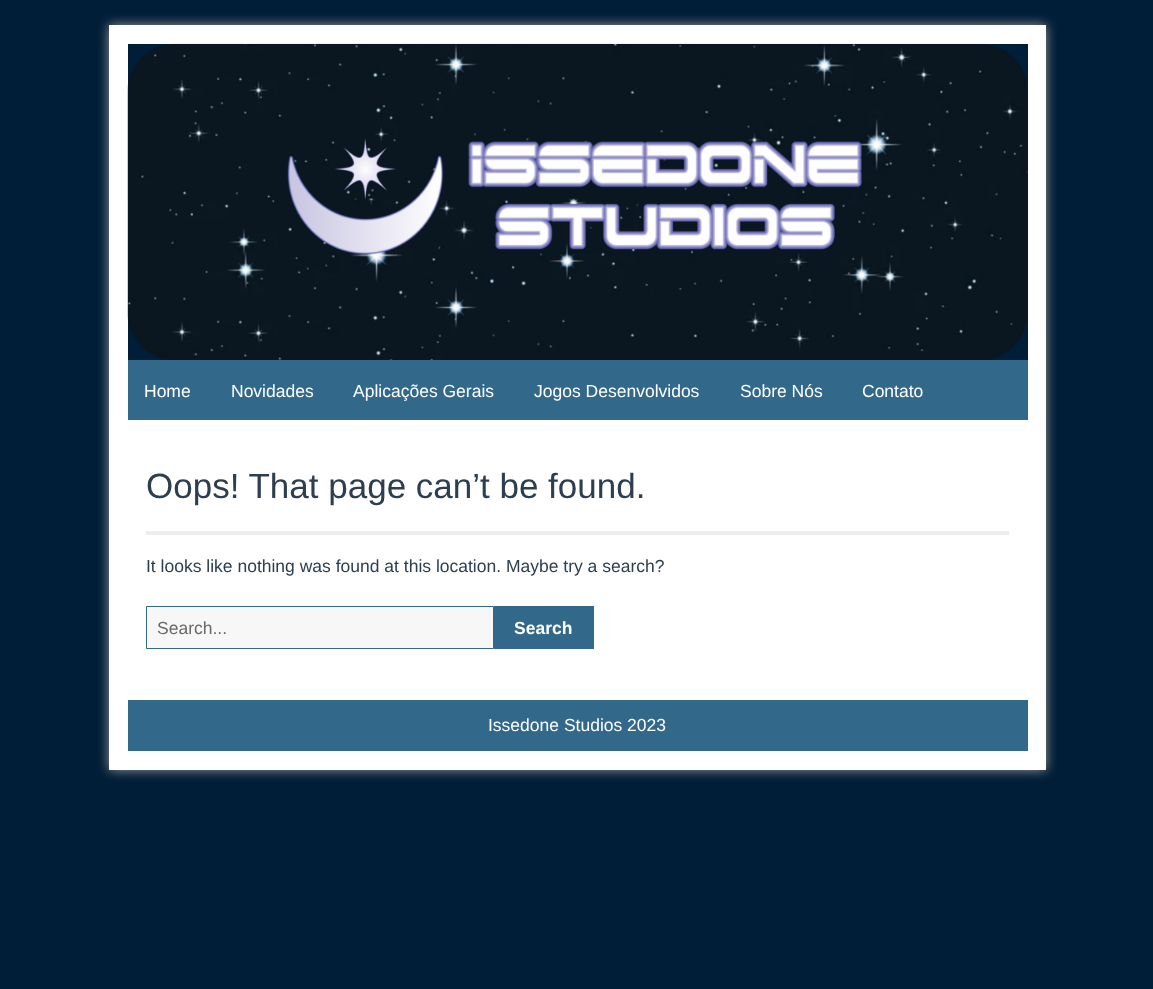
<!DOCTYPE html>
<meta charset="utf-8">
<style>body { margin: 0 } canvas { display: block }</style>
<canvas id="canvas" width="1153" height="989"></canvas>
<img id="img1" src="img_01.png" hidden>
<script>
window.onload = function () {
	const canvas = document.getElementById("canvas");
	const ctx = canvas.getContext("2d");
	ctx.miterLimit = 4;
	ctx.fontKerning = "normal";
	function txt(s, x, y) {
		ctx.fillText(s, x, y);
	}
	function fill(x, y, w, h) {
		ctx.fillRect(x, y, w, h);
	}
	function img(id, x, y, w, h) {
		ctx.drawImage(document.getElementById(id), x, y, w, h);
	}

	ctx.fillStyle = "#001E38";
	fill(0, 0, 1153, 989);
	ctx.fillStyle = "#999999";
	ctx.filter = "blur(6px)";
	ctx.beginPath();
	ctx.rect(109, 25, 937, 745);
	ctx.fill();
	ctx.filter = "none";
	ctx.fillStyle = "#FFFFFF";
	fill(109, 25, 937, 745);
	ctx.fillStyle = "#001E38";
	fill(128, 44, 900, 316);
	img("img1", 127, 43, 901, 317);
	ctx.fillStyle = "#32698B";
	fill(128, 360, 900, 60);
	ctx.fillStyle = "#EEEEEE";
	fill(146, 531, 863, 4);
	ctx.fillStyle = "#F7F7F7";
	ctx.beginPath();
	ctx.rect(146.5, 606.5, 347, 42);
	ctx.fill();
	ctx.strokeStyle = "#32698B";
	ctx.stroke();
	ctx.fillStyle = "#32698B";
	fill(494, 606, 100, 43);
	fill(128, 700, 900, 51);
	ctx.font = "17.5px Liberation Sans";
	ctx.fillStyle = "#FFFFFF";
	txt("Home", 144, 397);
	txt("Novidades", 231, 397);
	txt("Aplicações Gerais", 353, 397);
	txt("Jogos Desenvolvidos", 534, 397);
	txt("Sobre Nós", 740, 397);
	txt("Contato", 862, 397);
	ctx.font = "35px Liberation Sans";
	ctx.fillStyle = "#2C3E50";
	txt("Oops! That page can’t be found.", 146, 498);
	ctx.font = "17.5px Liberation Sans";
	txt("It looks like nothing was found at this location. Maybe try a search?", 146, 572);
	ctx.fillStyle = "#686868";
	txt("Search...", 157, 634);
	ctx.font = "bold 17.5px Liberation Sans";
	ctx.fillStyle = "#FFFFFF";
	txt("Search", 514, 634);
	ctx.font = "17.5px Liberation Sans";
	txt("Issedone Studios 2023", 488, 731);
};
</script>
